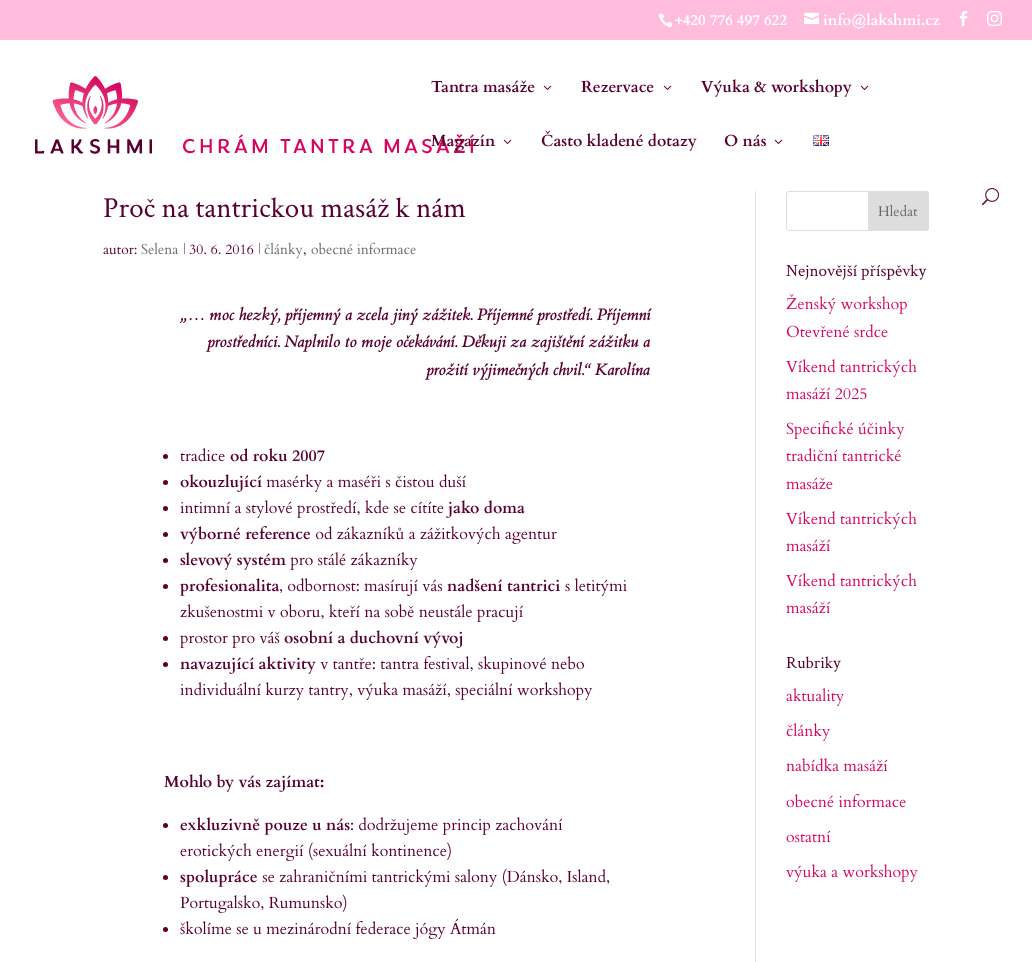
<!DOCTYPE html>
<meta charset="utf-8">
<style>body { margin: 0 } canvas { display: block }</style>
<canvas id="canvas" width="1032" height="962"></canvas>
<img id="img1" src="img_01.png" hidden>
<img id="img2" src="img_02.png" hidden>
<img id="img3" src="img_03.png" hidden>
<img id="img4" src="img_04.png" hidden>
<img id="img5" src="img_05.png" hidden>
<img id="img6" src="img_06.png" hidden>
<img id="img7" src="img_07.png" hidden>
<img id="img8" src="img_08.png" hidden>
<img id="img9" src="img_09.png" hidden>
<img id="img10" src="img_10.png" hidden>
<img id="img11" src="img_11.png" hidden>
<img id="img12" src="img_12.png" hidden>
<img id="img13" src="img_13.png" hidden>
<img id="img14" src="img_14.png" hidden>
<img id="img15" src="img_15.png" hidden>
<img id="img16" src="img_16.png" hidden>
<img id="img17" src="img_17.png" hidden>
<img id="img18" src="img_18.png" hidden>
<img id="img19" src="img_19.png" hidden>
<img id="img20" src="img_20.png" hidden>
<img id="img21" src="img_21.png" hidden>
<img id="img22" src="img_22.png" hidden>
<img id="img23" src="img_23.png" hidden>
<img id="img24" src="img_24.png" hidden>
<img id="img25" src="img_25.png" hidden>
<img id="img26" src="img_26.png" hidden>
<img id="img27" src="img_27.png" hidden>
<img id="img28" src="img_28.png" hidden>
<img id="img29" src="img_29.png" hidden>
<img id="img30" src="img_30.png" hidden>
<img id="img31" src="img_31.png" hidden>
<img id="img32" src="img_32.png" hidden>
<img id="img33" src="img_33.png" hidden>
<img id="img34" src="img_34.png" hidden>
<img id="img35" src="img_35.png" hidden>
<img id="img36" src="img_36.png" hidden>
<img id="img37" src="img_37.png" hidden>
<img id="img38" src="img_38.png" hidden>
<img id="img39" src="img_39.png" hidden>
<img id="img40" src="img_40.png" hidden>
<img id="img41" src="img_41.png" hidden>
<img id="img42" src="img_42.png" hidden>
<img id="img43" src="img_43.png" hidden>
<img id="img44" src="img_44.png" hidden>
<img id="img45" src="img_45.png" hidden>
<script>
window.onload = function () {
	const canvas = document.getElementById("canvas");
	const ctx = canvas.getContext("2d");
	ctx.miterLimit = 4;
	ctx.fontKerning = "normal";
	function txt(s, x, y) {
		ctx.fillText(s, x, y);
	}
	function fill(x, y, w, h) {
		ctx.fillRect(x, y, w, h);
	}
	function img(id, x, y, w, h) {
		ctx.drawImage(document.getElementById(id), x, y, w, h);
	}

	ctx.fillStyle = "#FFFFFF";
	fill(0, 0, 1032, 962);
	ctx.fillStyle = "#FFBCDD";
	fill(0, 0, 1032, 40);
	img("img1", 658, 13, 15, 15);
	img("img2", 804, 12, 15, 13);
	img("img3", 959, 10, 9, 16);
	img("img4", 987, 10, 15, 16);
	ctx.fillStyle = "#E2E2E2";
	fill(755, 40, 1, 922);
	ctx.fillStyle = "rgba(255, 255, 255, 0.95)";
	fill(755, 40, 1, 151);
	img("img5", 35, 76, 439, 78);
	img("img6", 543, 85, 9, 5);
	img("img6", 663, 85, 9, 5);
	img("img6", 860, 85, 9, 5);
	img("img6", 503, 139, 9, 5);
	img("img6", 774, 139, 9, 5);
	img("img7", 813, 135, 16, 11);
	img("img8", 982, 188, 17, 18);
	img("img9", 103, 246, 34, 9);
	img("img10", 141, 242, 38, 13);
	ctx.fillStyle = "#590030";
	ctx.beginPath();
	ctx.moveTo(184, 243);
	ctx.lineTo(184.5, 243);
	ctx.lineTo(184.5, 254);
	ctx.lineTo(184, 254);
	ctx.closePath();
	ctx.fill();
	img("img11", 189, 244, 65, 11);
	ctx.beginPath();
	ctx.moveTo(259, 243);
	ctx.lineTo(259.5, 243);
	ctx.lineTo(259.5, 254);
	ctx.lineTo(259, 254);
	ctx.closePath();
	ctx.fill();
	img("img12", 264, 242, 39, 17);
	img("img13", 303, 252, 3, 4);
	img("img14", 311, 242, 105, 13);
	ctx.beginPath();
	ctx.arc(165.5, 456.5, 2.5, 0, Math.PI * 2);
	ctx.fill();
	img("img15", 180, 448, 45, 14);
	ctx.beginPath();
	ctx.arc(165.5, 482.5, 2.5, 0, Math.PI * 2);
	ctx.fill();
	img("img16", 266, 474, 200, 18);
	ctx.beginPath();
	ctx.arc(165.5, 508.5, 2.5, 0, Math.PI * 2);
	ctx.fill();
	img("img17", 180, 500, 264, 18);
	ctx.beginPath();
	ctx.arc(165.5, 534.5, 2.5, 0, Math.PI * 2);
	ctx.fill();
	img("img18", 315, 526, 242, 18);
	ctx.beginPath();
	ctx.arc(165.5, 560.5, 2.5, 0, Math.PI * 2);
	ctx.fill();
	img("img19", 290, 552, 128, 18);
	ctx.beginPath();
	ctx.arc(165.5, 586.5, 2.5, 0, Math.PI * 2);
	ctx.fill();
	img("img20", 280, 578, 163, 18);
	img("img21", 565, 578, 62, 18);
	img("img22", 180, 604, 343, 18);
	ctx.beginPath();
	ctx.arc(165.5, 638.5, 2.5, 0, Math.PI * 2);
	ctx.fill();
	img("img23", 180, 631, 100, 17);
	ctx.beginPath();
	ctx.arc(165.5, 664.5, 2.5, 0, Math.PI * 2);
	ctx.fill();
	img("img24", 320, 656, 264, 18);
	img("img25", 180, 682, 413, 18);
	ctx.beginPath();
	ctx.arc(165.5, 825.5, 2.5, 0, Math.PI * 2);
	ctx.fill();
	img("img26", 351, 817, 212, 18);
	img("img27", 180, 842, 271, 19);
	ctx.beginPath();
	ctx.arc(165.5, 877.5, 2.5, 0, Math.PI * 2);
	ctx.fill();
	img("img28", 262, 868, 348, 19);
	img("img29", 180, 894, 167, 19);
	ctx.beginPath();
	ctx.arc(165.5, 929.5, 2.5, 0, Math.PI * 2);
	ctx.fill();
	img("img30", 180, 918, 316, 21);
	ctx.beginPath();
	ctx.roundRect(786.5, 191.5, 142, 39, 2.5);
	ctx.strokeStyle = "#DDDDDD";
	ctx.stroke();
	ctx.fillStyle = "#DDDDDD";
	ctx.beginPath();
	ctx.roundRect(868.5, 191.5, 60, 39, [0, 2.5, 2.5, 0]);
	ctx.fill();
	ctx.stroke();
	img("img31", 878, 204, 40, 13);
	img("img32", 786, 293, 121, 21);
	img("img33", 786, 324, 102, 14);
	img("img34", 786, 359, 131, 18);
	img("img35", 786, 387, 81, 13);
	img("img36", 786, 421, 119, 18);
	img("img37", 786, 448, 115, 14);
	img("img38", 786, 477, 47, 13);
	img("img34", 786, 511, 131, 18);
	img("img39", 786, 539, 44, 13);
	img("img34", 786, 573, 131, 18);
	img("img39", 786, 601, 44, 13);
	img("img40", 786, 688, 58, 18);
	img("img41", 786, 723, 45, 18);
	img("img42", 786, 758, 102, 14);
	img("img43", 786, 794, 120, 14);
	img("img44", 786, 830, 45, 13);
	img("img45", 786, 864, 132, 18);
	ctx.font = "bold 15px Cardo";
	ctx.fillStyle = "#FFFFFF";
	txt("+420 776 497 622", 675, 25);
	txt("info@lakshmi.cz", 823, 25);
	ctx.font = "bold 16px Cardo";
	ctx.fillStyle = "#590030";
	txt("Tantra masáže", 431, 92);
	txt("Rezervace", 581, 92);
	txt("Výuka & workshopy", 701, 92);
	txt("Magazín", 431, 146);
	txt("Často kladené dotazy", 541, 146);
	txt("O nás", 724, 146);
	ctx.font = "29px Crimson Text";
	txt("Proč na tantrickou masáž k nám", 103, 217);
	ctx.font = "italic bold 16px Cardo";
	txt("„… moc hezký, příjemný a zcela jiný zážitek. Příjemné prostředí. Příjemní", 180, 320);
	txt("prostředníci. Naplnilo to moje očekávání. Děkuji za zajištění zážitku a", 207, 347);
	txt("prožití výjimečných chvil.“ Karolína", 426, 375);
	ctx.font = "bold 16px Cardo";
	txt("od roku 2007", 230, 461);
	txt("okouzlující", 180, 487);
	txt("jako doma", 448, 513);
	txt("výborné reference", 180, 539);
	txt("slevový systém", 180, 565);
	txt("profesionalita", 180, 591);
	txt("nadšení tantrici", 447, 591);
	txt("osobní a duchovní vývoj", 284, 643);
	txt("navazující aktivity", 180, 669);
	txt("Mohlo by vás zajímat:", 164, 787);
	txt("exkluzivně pouze u nás", 180, 830);
	txt("spolupráce", 180, 882);
	ctx.font = "17px Crimson Text";
	txt("Nejnovější příspěvky", 786, 276);
	txt("Rubriky", 786, 668);
};
</script>
